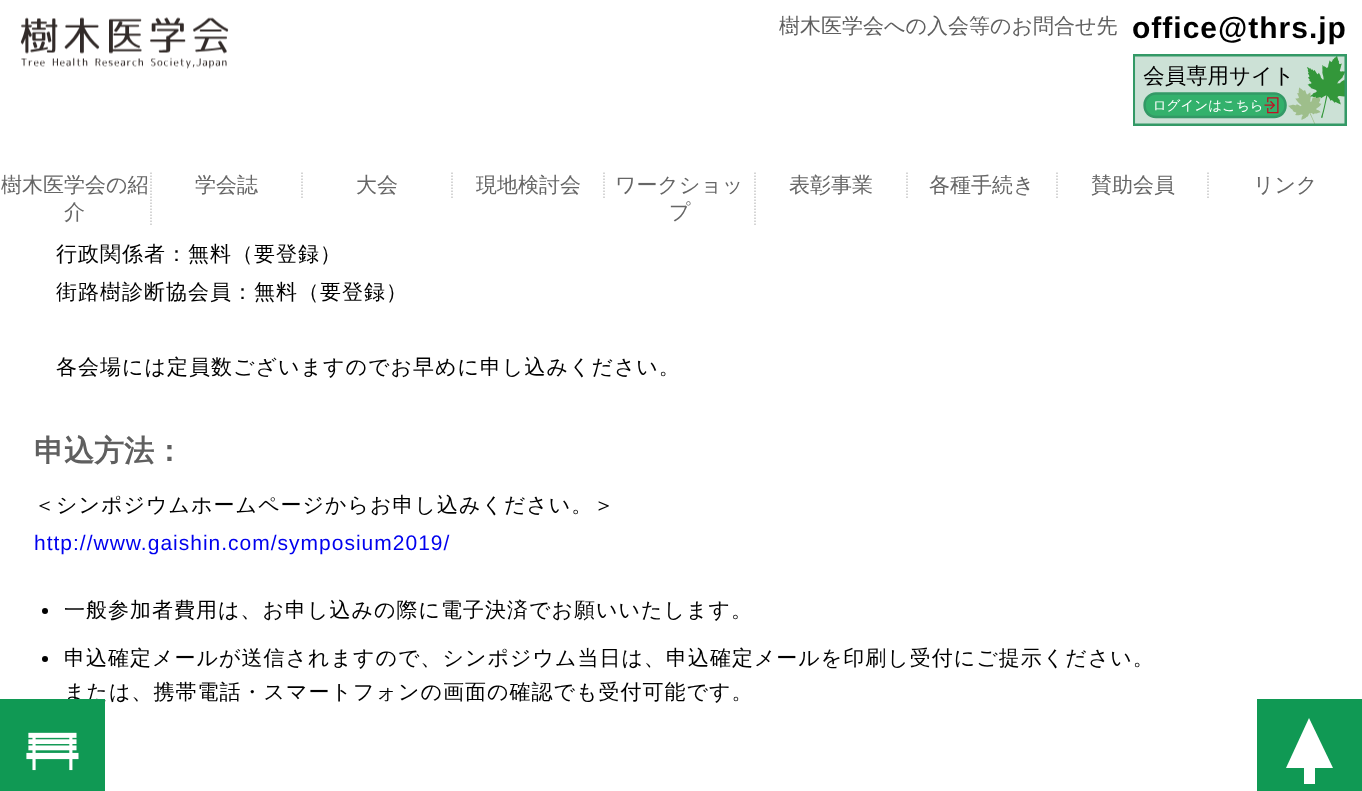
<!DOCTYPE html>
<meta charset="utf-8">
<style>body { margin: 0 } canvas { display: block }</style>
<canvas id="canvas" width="1362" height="791"></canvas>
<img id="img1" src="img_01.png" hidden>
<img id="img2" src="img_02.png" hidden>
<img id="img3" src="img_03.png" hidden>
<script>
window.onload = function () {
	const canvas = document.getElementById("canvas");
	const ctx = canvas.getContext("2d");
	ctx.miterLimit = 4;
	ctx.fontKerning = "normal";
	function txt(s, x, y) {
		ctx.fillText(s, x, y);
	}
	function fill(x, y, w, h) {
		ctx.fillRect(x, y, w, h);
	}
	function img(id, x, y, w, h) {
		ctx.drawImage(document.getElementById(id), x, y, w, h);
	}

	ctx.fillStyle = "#FFFFFF";
	fill(0, 0, 1362, 791);
	img("img1", 20, 17, 209, 52);
	img("img2", 1133, 54, 214, 72);
	ctx.beginPath();
	ctx.moveTo(151, 172.5);
	ctx.lineTo(151, 226.5);
	ctx.strokeStyle = "#C7C7C7";
	ctx.lineWidth = 1.5;
	ctx.setLineDash([1.5, 1.5]);
	ctx.stroke();
	ctx.beginPath();
	ctx.moveTo(302, 172.5);
	ctx.lineTo(302, 199.5);
	ctx.stroke();
	ctx.beginPath();
	ctx.moveTo(452, 172.5);
	ctx.lineTo(452, 199.5);
	ctx.stroke();
	ctx.beginPath();
	ctx.moveTo(604, 172.5);
	ctx.lineTo(604, 199.5);
	ctx.stroke();
	ctx.beginPath();
	ctx.moveTo(755, 172.5);
	ctx.lineTo(755, 226.5);
	ctx.stroke();
	ctx.beginPath();
	ctx.moveTo(907, 172.5);
	ctx.lineTo(907, 199.5);
	ctx.stroke();
	ctx.beginPath();
	ctx.moveTo(1057, 172.5);
	ctx.lineTo(1057, 199.5);
	ctx.stroke();
	ctx.beginPath();
	ctx.moveTo(1208, 172.5);
	ctx.lineTo(1208, 199.5);
	ctx.stroke();
	ctx.fillStyle = "#000000";
	ctx.beginPath();
	ctx.arc(45, 611, 3, 0, Math.PI * 2);
	ctx.fill();
	ctx.beginPath();
	ctx.arc(45, 659, 3, 0, Math.PI * 2);
	ctx.fill();
	ctx.fillStyle = "#109954";
	fill(1257, 699, 105, 92);
	ctx.fillStyle = "#FFFFFF";
	ctx.beginPath();
	ctx.moveTo(1333, 768);
	ctx.lineTo(1286, 768);
	ctx.lineTo(1309, 718);
	ctx.closePath();
	ctx.fill();
	fill(1304, 768, 11, 16);
	ctx.font = "500 21px WenQuanYi Zen Hei";
	ctx.fillStyle = "#5F5F5F";
	txt("樹木医学会への入会等のお問合せ先", 779, 33);
	ctx.letterSpacing = "1px";
	ctx.font = "bold 30px Liberation Sans";
	ctx.fillStyle = "#000000";
	txt("office@thrs.jp", 1132, 38);
	ctx.letterSpacing = "0px";
	ctx.font = "500 21px WenQuanYi Zen Hei";
	ctx.fillStyle = "#666666";
	txt("樹木医学会の紹", 1, 192);
	txt("介", 64, 219);
	txt("学会誌", 195, 192);
	txt("大会", 356, 192);
	txt("現地検討会", 476, 192);
	txt("ワークショッ", 615, 192);
	txt("プ", 669, 219);
	txt("表彰事業", 789, 192);
	txt("各種手続き", 929, 192);
	txt("賛助会員", 1091, 192);
	txt("リンク", 1253, 192);
	ctx.letterSpacing = "1px";
	ctx.fillStyle = "#000000";
	txt("行政関係者：無料（要登録）", 56, 261);
	txt("街路樹診断協会員：無料（要登録）", 56, 299);
	txt("各会場には定員数ございますのでお早めに申し込みください。", 56, 374);
	ctx.letterSpacing = "0px";
	ctx.font = "bold 30px WenQuanYi Zen Hei";
	ctx.fillStyle = "#5F5F5F";
	txt("申込方法：", 34, 461);
	ctx.letterSpacing = "1px";
	ctx.font = "500 21px WenQuanYi Zen Hei";
	ctx.fillStyle = "#000000";
	txt("＜シンポジウムホームページからお申し込みください。＞", 34, 512);
	ctx.font = "21px Liberation Sans";
	ctx.fillStyle = "#0000EE";
	txt("http://www.gaishin.com/symposium2019/", 34, 550);
	ctx.font = "500 21px WenQuanYi Zen Hei";
	ctx.fillStyle = "#000000";
	txt("一般参加者費用は、お申し込みの際に電子決済でお願いいたします。", 64, 617);
	txt("申込確定メールが送信されますので、シンポジウム当日は、申込確定メールを印刷し受付にご提示ください。", 64, 665);
	txt("または、携帯電話・スマートフォンの画面の確認でも受付可能です。", 64, 699);
	ctx.fillStyle = "#109954";
	fill(0, 699, 105, 92);
	img("img3", 26, 732, 53, 39);
};
</script>
